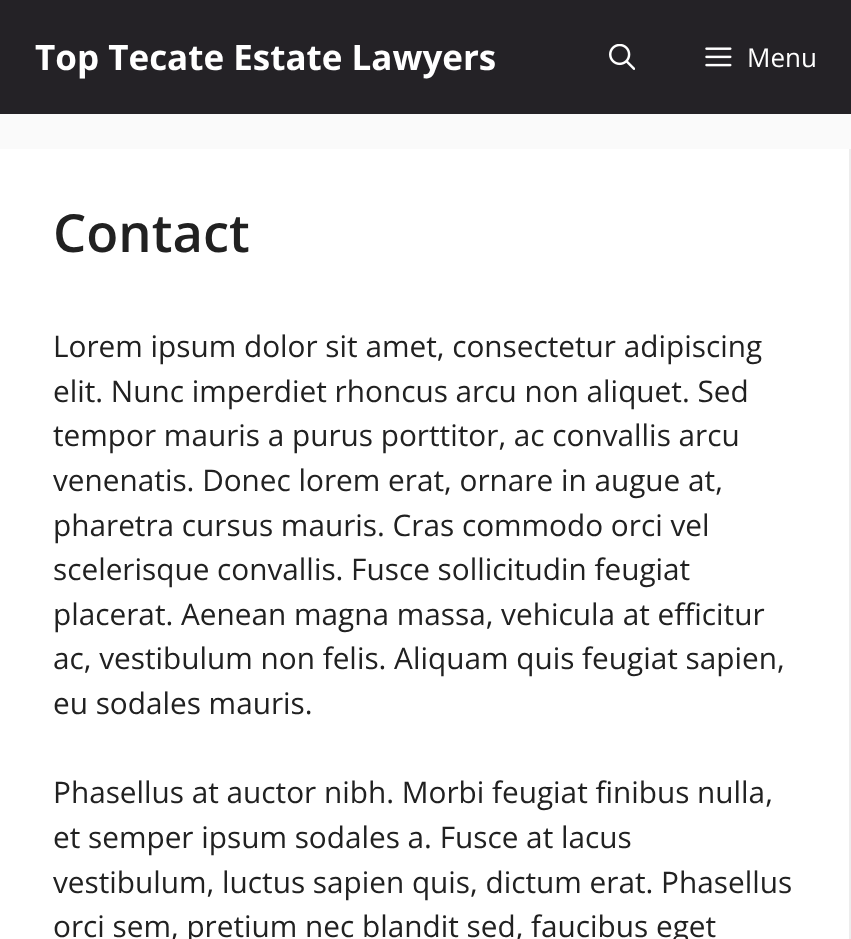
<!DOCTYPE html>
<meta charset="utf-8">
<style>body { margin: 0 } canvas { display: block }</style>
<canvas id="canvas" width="851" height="939"></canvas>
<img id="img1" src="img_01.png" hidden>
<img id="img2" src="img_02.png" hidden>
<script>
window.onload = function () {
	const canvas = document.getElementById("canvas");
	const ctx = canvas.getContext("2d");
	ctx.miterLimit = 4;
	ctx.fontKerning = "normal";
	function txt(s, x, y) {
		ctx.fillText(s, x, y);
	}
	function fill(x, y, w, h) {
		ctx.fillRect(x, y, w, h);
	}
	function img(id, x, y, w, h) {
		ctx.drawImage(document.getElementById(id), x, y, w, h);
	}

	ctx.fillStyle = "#FAFAFA";
	fill(0, 0, 851, 939);
	ctx.fillStyle = "#242226";
	fill(0, 0, 851, 114);
	img("img1", 609, 44, 26, 26);
	img("img2", 705, 47, 27, 20);
	ctx.fillStyle = "#FFFFFF";
	fill(0, 149, 849, 790);
	ctx.fillStyle = "#EDEDED";
	ctx.beginPath();
	ctx.moveTo(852, 149);
	ctx.lineTo(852, 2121);
	ctx.lineTo(849, 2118);
	ctx.lineTo(849, 149);
	ctx.closePath();
	ctx.fill();
	ctx.font = "bold 35px Open Sans";
	ctx.fillStyle = "#FFFFFF";
	txt("Top Tecate Estate Lawyers", 35, 70);
	ctx.font = "26px Open Sans";
	txt("Menu", 747, 67);
	ctx.font = "600 52.5px Open Sans";
	ctx.fillStyle = "#212121";
	txt("Contact", 53, 252);
	ctx.font = "29.75px Open Sans";
	txt("Lorem ipsum dolor sit amet, consectetur adipiscing", 53, 357);
	txt("elit. Nunc imperdiet rhoncus arcu non aliquet. Sed", 53, 402);
	txt("tempor mauris a purus porttitor, ac convallis arcu", 53, 446);
	txt("venenatis. Donec lorem erat, ornare in augue at,", 53, 491);
	txt("pharetra cursus mauris. Cras commodo orci vel", 53, 536);
	txt("scelerisque convallis. Fusce sollicitudin feugiat", 53, 580);
	txt("placerat. Aenean magna massa, vehicula at efficitur", 53, 625);
	txt("ac, vestibulum non felis. Aliquam quis feugiat sapien,", 53, 669);
	txt("eu sodales mauris.", 53, 714);
	txt("Phasellus at auctor nibh. Morbi feugiat finibus nulla,", 53, 803);
	txt("et semper ipsum sodales a. Fusce at lacus", 53, 848);
	txt("vestibulum, luctus sapien quis, dictum erat. Phasellus", 53, 893);
	txt("orci sem, pretium nec blandit sed, faucibus eget", 53, 937);
};
</script>
